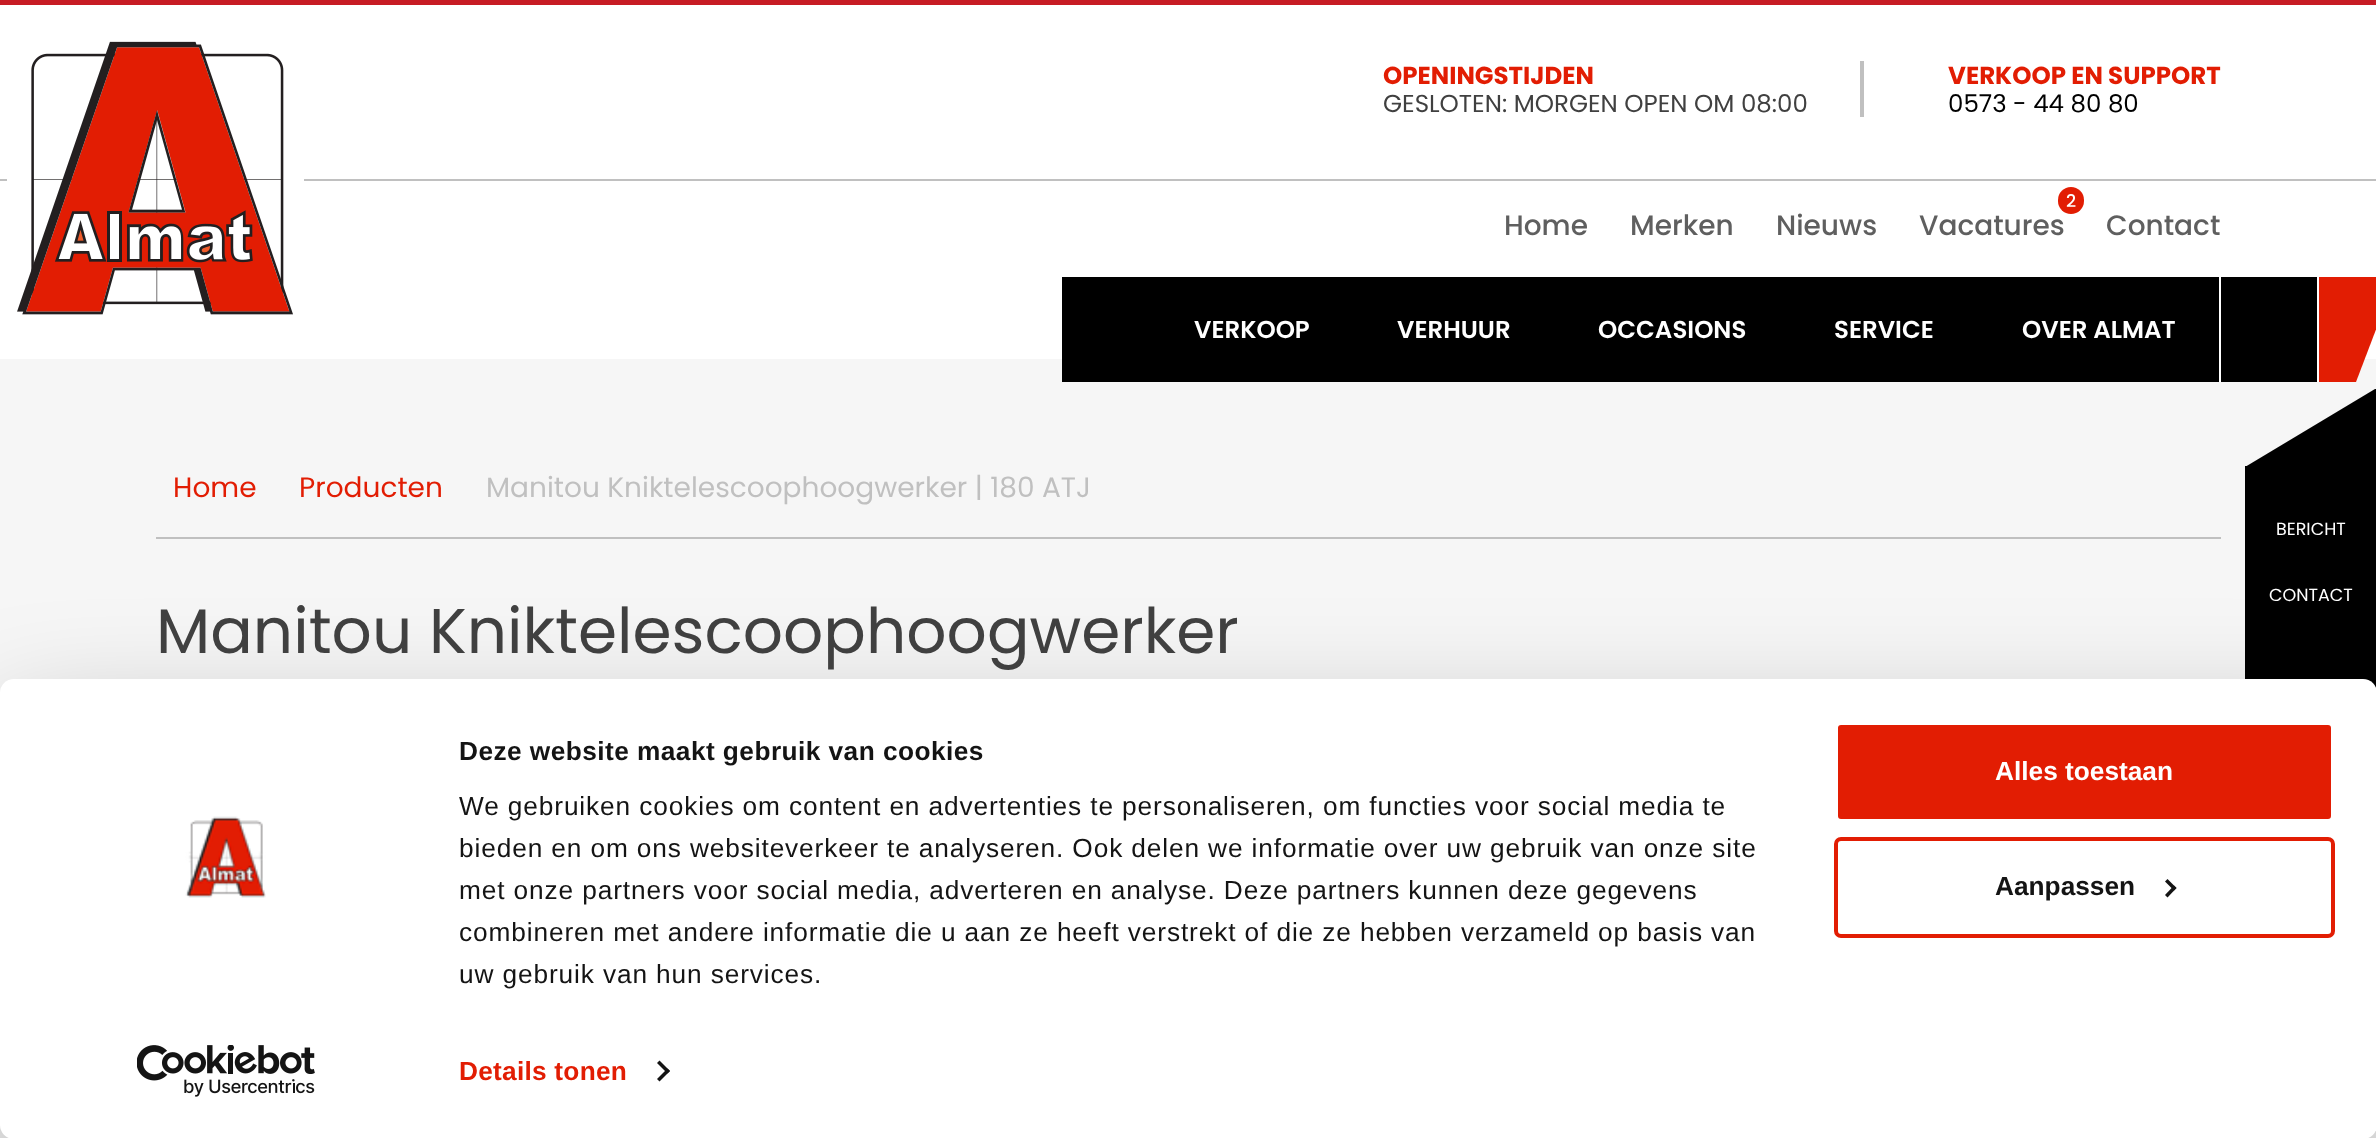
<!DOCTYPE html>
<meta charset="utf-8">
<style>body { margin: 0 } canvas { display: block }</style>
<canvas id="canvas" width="2376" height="1138"></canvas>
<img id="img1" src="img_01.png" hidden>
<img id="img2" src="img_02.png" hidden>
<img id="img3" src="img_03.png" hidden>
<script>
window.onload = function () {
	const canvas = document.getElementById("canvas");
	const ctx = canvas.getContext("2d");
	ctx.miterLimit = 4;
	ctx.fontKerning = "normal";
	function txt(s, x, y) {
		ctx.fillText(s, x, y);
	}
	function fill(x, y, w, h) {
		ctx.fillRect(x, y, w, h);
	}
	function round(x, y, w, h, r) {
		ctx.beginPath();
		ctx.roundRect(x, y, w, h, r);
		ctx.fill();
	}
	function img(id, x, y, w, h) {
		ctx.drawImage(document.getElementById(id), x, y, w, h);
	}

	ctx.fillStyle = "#FFFFFF";
	fill(0, 0, 2376, 1138);
	ctx.fillStyle = "#C71C24";
	fill(0, 0, 2376, 5);
	ctx.fillStyle = "#C0C0C0";
	fill(0, 179, 2376, 2);
	img("img1", 7, 41, 297, 274);
	fill(1860, 61, 4, 56);
	ctx.fillStyle = "#E21D03";
	round(2058, 187, 26, 27, 13);
	ctx.fillStyle = "#F6F6F6";
	fill(0, 359, 2376, 779);
	ctx.fillStyle = "#000000";
	fill(1062, 277, 1255, 105);
	ctx.fillStyle = "#FFFFFF";
	fill(2219, 277, 2, 105);
	ctx.fillStyle = "#E21D03";
	ctx.beginPath();
	ctx.moveTo(2319, 277);
	ctx.lineTo(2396, 277);
	ctx.lineTo(2356, 382);
	ctx.lineTo(2319, 382);
	ctx.closePath();
	ctx.fill();
	ctx.fillStyle = "#FFFFFF";
	fill(2317, 359, 2, 23);
	ctx.fillStyle = "#C0C0C0";
	fill(156, 537, 2065, 2);
	ctx.fillStyle = "#000000";
	fill(2245, 466, 131, 222);
	ctx.beginPath();
	ctx.moveTo(2376, 389);
	ctx.lineTo(2375, 389);
	ctx.lineTo(2245, 467);
	ctx.lineTo(2376, 467);
	ctx.closePath();
	ctx.fill();
	ctx.fillStyle = "rgba(0, 0, 0, 0.3)";
	ctx.filter = "blur(61px)";
	ctx.beginPath();
	ctx.roundRect(0, 732, 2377, 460, 14);
	ctx.fill();
	ctx.filter = "none";
	ctx.fillStyle = "#FFFFFF";
	round(0, 679, 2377, 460, 14);
	img("img2", 185, 816, 81, 82);
	img("img3", 137, 1045, 178, 52);
	ctx.fillStyle = "#141414";
	ctx.beginPath();
	ctx.moveTo(659.5, 1060.5);
	ctx.lineTo(670, 1071);
	ctx.lineTo(667.5, 1073.5);
	ctx.lineTo(657, 1063);
	ctx.closePath();
	ctx.fill();
	ctx.beginPath();
	ctx.moveTo(667.5, 1068.5);
	ctx.lineTo(670, 1071);
	ctx.lineTo(659.5, 1081.5);
	ctx.lineTo(657, 1079);
	ctx.closePath();
	ctx.fill();
	ctx.fillStyle = "#E21D03";
	ctx.beginPath();
	ctx.roundRect(1836, 723, 497, 98, 5);
	ctx.fill();
	ctx.strokeStyle = "#FFFFFF";
	ctx.lineWidth = 4;
	ctx.stroke();
	ctx.beginPath();
	ctx.roundRect(1836, 839, 497, 97, 5);
	ctx.strokeStyle = "#E21D03";
	ctx.stroke();
	ctx.fillStyle = "#141414";
	ctx.beginPath();
	ctx.moveTo(2167.5, 879);
	ctx.lineTo(2176.5, 888);
	ctx.lineTo(2174, 890.5);
	ctx.lineTo(2165, 881.5);
	ctx.closePath();
	ctx.fill();
	ctx.beginPath();
	ctx.moveTo(2174, 885.5);
	ctx.lineTo(2176.5, 888);
	ctx.lineTo(2167.5, 897.5);
	ctx.lineTo(2165, 895);
	ctx.closePath();
	ctx.fill();
	ctx.font = "bold 24.5px Poppins";
	ctx.fillStyle = "#E21D03";
	txt("OPENINGSTIJDEN", 1383, 84);
	ctx.font = "24.5px Poppins";
	ctx.fillStyle = "#404040";
	txt("GESLOTEN: MORGEN OPEN OM 08:00", 1383, 112);
	ctx.font = "bold 24.5px Poppins";
	ctx.fillStyle = "#E21D03";
	txt("VERKOOP EN SUPPORT", 1948, 84);
	ctx.font = "24.5px Poppins";
	ctx.fillStyle = "#000000";
	txt("0573 - 44 80 80", 1948, 112);
	ctx.font = "500 28px Poppins";
	ctx.fillStyle = "#5F5F5F";
	txt("Home", 1504, 235);
	txt("Merken", 1630, 235);
	txt("Nieuws", 1776, 235);
	ctx.font = "500 17.5px Poppins";
	ctx.fillStyle = "#FFFFFF";
	txt("2", 2066, 207);
	ctx.font = "500 28px Poppins";
	ctx.fillStyle = "#5F5F5F";
	txt("Vacatures", 1919, 235);
	txt("Contact", 2106, 235);
	ctx.font = "600 24.5px Poppins";
	ctx.fillStyle = "#FFFFFF";
	txt("VERKOOP", 1194, 338);
	txt("VERHUUR", 1397, 338);
	txt("OCCASIONS", 1598, 338);
	txt("SERVICE", 1834, 338);
	txt("OVER ALMAT", 2022, 338);
	ctx.font = "28px Poppins";
	ctx.fillStyle = "#E21D03";
	txt("Home", 173, 497);
	txt("Producten", 299, 497);
	ctx.fillStyle = "#C0C0C0";
	txt("Manitou Kniktelescoophoogwerker | 180 ATJ", 486, 497);
	ctx.font = "63px Poppins";
	ctx.fillStyle = "#404040";
	txt("Manitou Kniktelescoophoogwerker", 156, 653);
	ctx.font = "17.5px Poppins";
	ctx.fillStyle = "#FFFFFF";
	txt("BERICHT", 2276, 535);
	txt("CONTACT", 2269, 601);
	ctx.letterSpacing = "0.45px";
	ctx.font = "bold 26.25px Liberation Sans";
	ctx.fillStyle = "#141414";
	txt("Deze website maakt gebruik van cookies", 459, 760);
	ctx.letterSpacing = "0.88px";
	ctx.font = "26.25px Liberation Sans";
	txt("We gebruiken cookies om content en advertenties te personaliseren, om functies voor social media te", 459, 815);
	txt("bieden en om ons websiteverkeer te analyseren. Ook delen we informatie over uw gebruik van onze site", 459, 857);
	txt("met onze partners voor social media, adverteren en analyse. Deze partners kunnen deze gegevens", 459, 899);
	txt("combineren met andere informatie die u aan ze heeft verstrekt of die ze hebben verzameld op basis van", 459, 941);
	txt("uw gebruik van hun services.", 459, 983);
	ctx.letterSpacing = "0.25px";
	ctx.font = "bold 26.25px Liberation Sans";
	ctx.fillStyle = "#E21D03";
	txt("Details tonen", 459, 1080);
	ctx.letterSpacing = "0px";
	ctx.fillStyle = "#FFFFFF";
	txt("Alles toestaan", 1995, 780);
	ctx.fillStyle = "#141414";
	txt("Aanpassen", 1995, 895);
};
</script>
